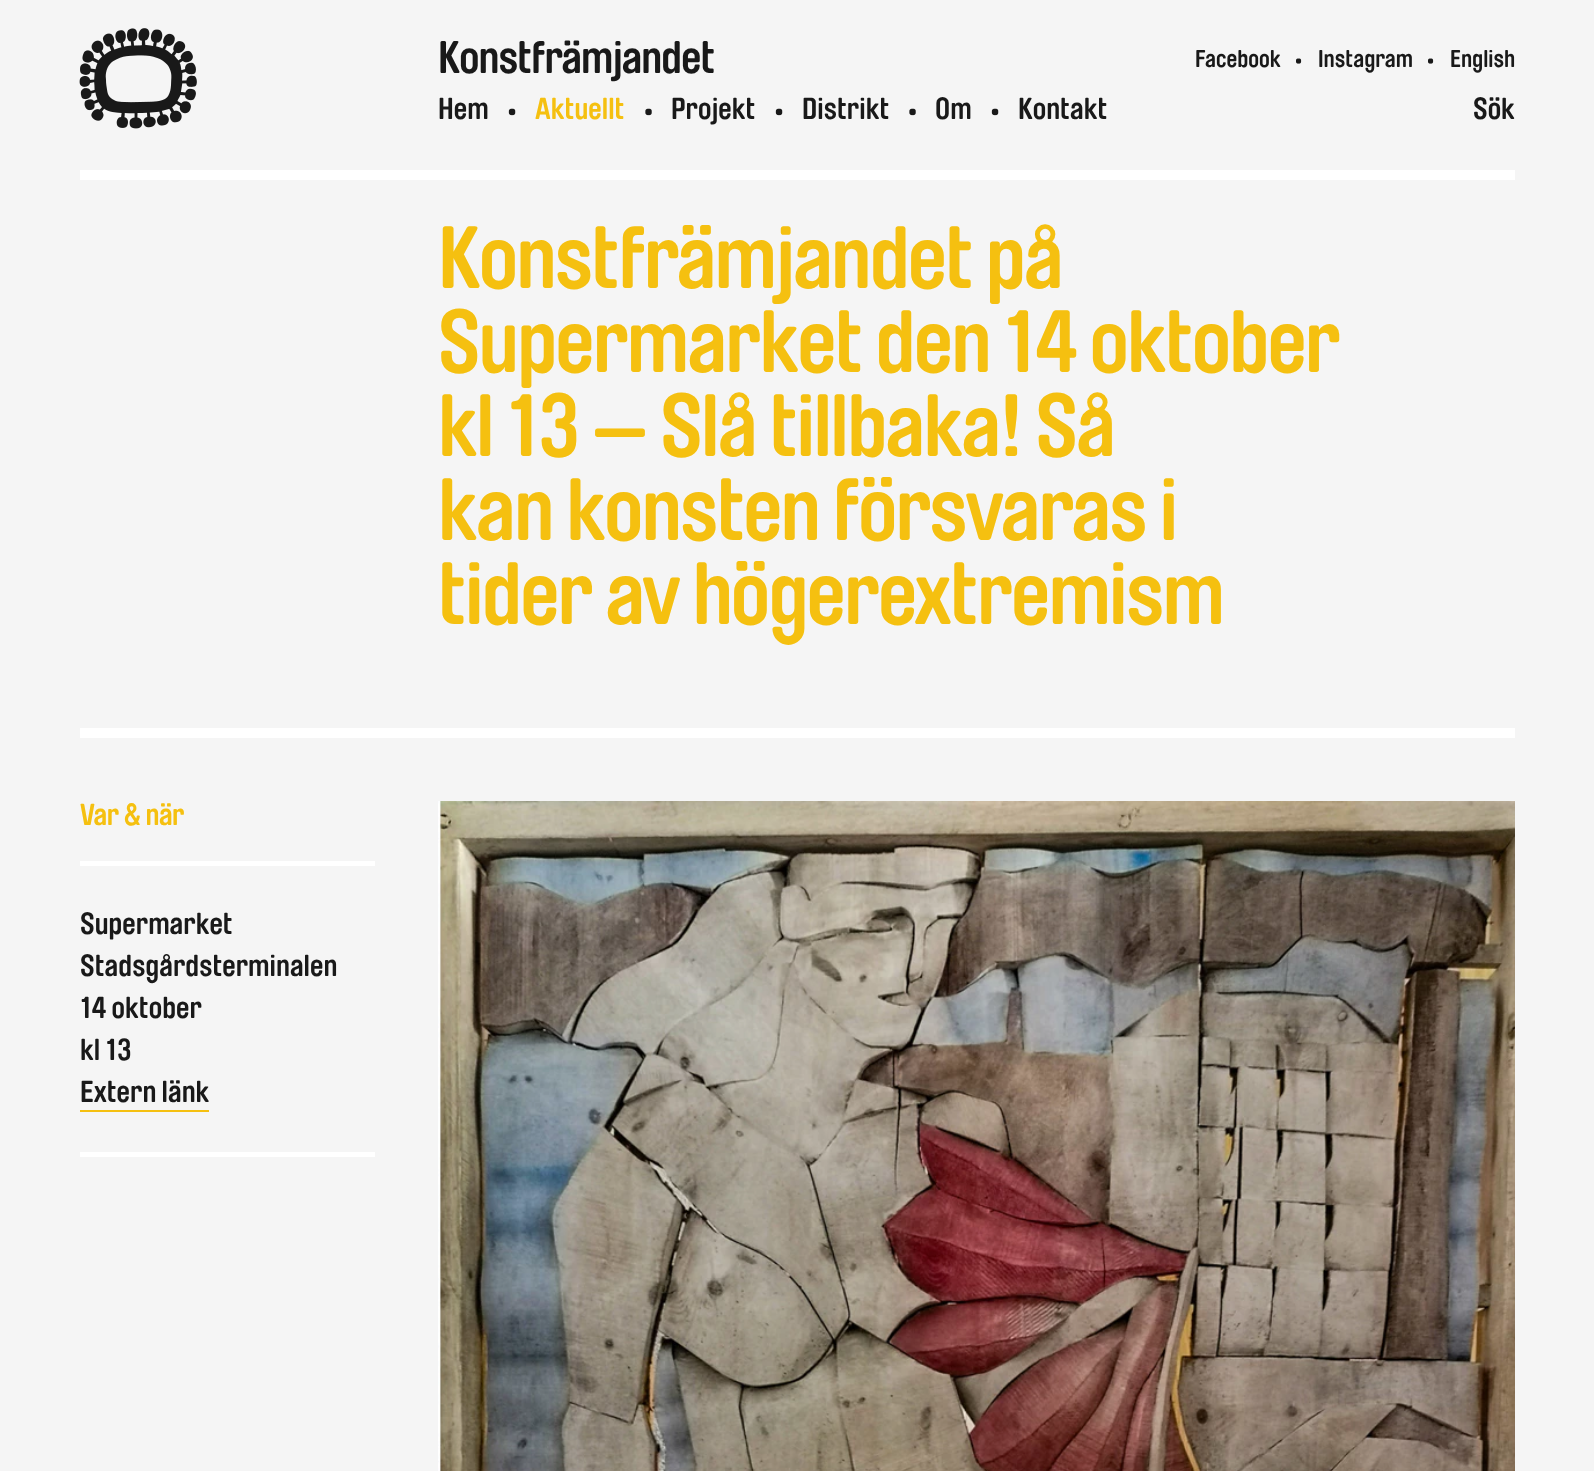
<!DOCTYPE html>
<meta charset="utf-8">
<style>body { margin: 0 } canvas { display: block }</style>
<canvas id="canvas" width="1594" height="1471"></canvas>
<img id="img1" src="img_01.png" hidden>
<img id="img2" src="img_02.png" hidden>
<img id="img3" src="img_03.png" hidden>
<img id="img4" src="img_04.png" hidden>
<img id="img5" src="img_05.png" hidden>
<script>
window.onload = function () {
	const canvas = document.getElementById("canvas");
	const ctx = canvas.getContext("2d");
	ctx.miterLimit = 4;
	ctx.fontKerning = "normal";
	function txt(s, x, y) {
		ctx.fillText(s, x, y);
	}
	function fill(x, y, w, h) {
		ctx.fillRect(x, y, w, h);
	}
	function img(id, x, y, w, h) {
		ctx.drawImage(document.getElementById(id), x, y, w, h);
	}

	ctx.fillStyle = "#F5F5F5";
	fill(0, 0, 1594, 1471);
	img("img1", 79, 28, 118, 101);
	ctx.fillStyle = "#FFFFFF";
	fill(80, 170, 1435, 10);
	img("img2", 1296, 58, 6, 6);
	img("img2", 1428, 58, 6, 6);
	img("img3", 508, 108, 8, 8);
	img("img4", 645, 108, 7, 8);
	img("img3", 775, 108, 8, 8);
	img("img4", 909, 108, 7, 8);
	img("img3", 991, 108, 8, 8);
	fill(80, 728, 1435, 10);
	fill(80, 861, 295, 5);
	fill(80, 1152, 295, 5);
	ctx.fillStyle = "#F5C010";
	fill(80, 1110, 129, 2);
	img("img5", 438, 801, 1077, 670);
	ctx.letterSpacing = "-0.9px";
	ctx.font = "45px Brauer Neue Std";
	ctx.fillStyle = "#191919";
	txt("Konstfrämjandet", 438, 73);
	ctx.letterSpacing = "0px";
	ctx.font = "24px Brauer Neue Std";
	txt("Facebook", 1195, 67);
	txt("Instagram", 1318, 67);
	txt("English", 1450, 67);
	ctx.font = "30px Brauer Neue Std";
	txt("Hem", 438, 119);
	ctx.fillStyle = "#F5C010";
	txt("Aktuellt", 535, 119);
	ctx.fillStyle = "#191919";
	txt("Projekt", 671, 119);
	txt("Distrikt", 802, 119);
	txt("Om", 935, 119);
	txt("Kontakt", 1018, 119);
	txt("Sök", 1473, 119);
	ctx.letterSpacing = "-1.75px";
	ctx.font = "87px Brauer Neue Std";
	ctx.fillStyle = "#F5C010";
	txt("Konstfrämjandet på", 438, 288);
	txt("Supermarket den 14 oktober", 438, 372);
	txt("kl 13 — Slå tillbaka! Så", 438, 456);
	txt("kan konsten försvaras i", 438, 540);
	txt("tider av högerextremism", 438, 624);
	ctx.letterSpacing = "-0.5px";
	ctx.font = "30px Brauer Neue Std";
	txt("Var & när", 80, 825);
	ctx.letterSpacing = "0px";
	ctx.fillStyle = "#191919";
	txt("Supermarket", 80, 934);
	txt("Stadsgårdsterminalen", 80, 976);
	txt("14 oktober", 80, 1018);
	txt("kl 13", 80, 1060);
	txt("Extern länk", 80, 1102);
};
</script>
